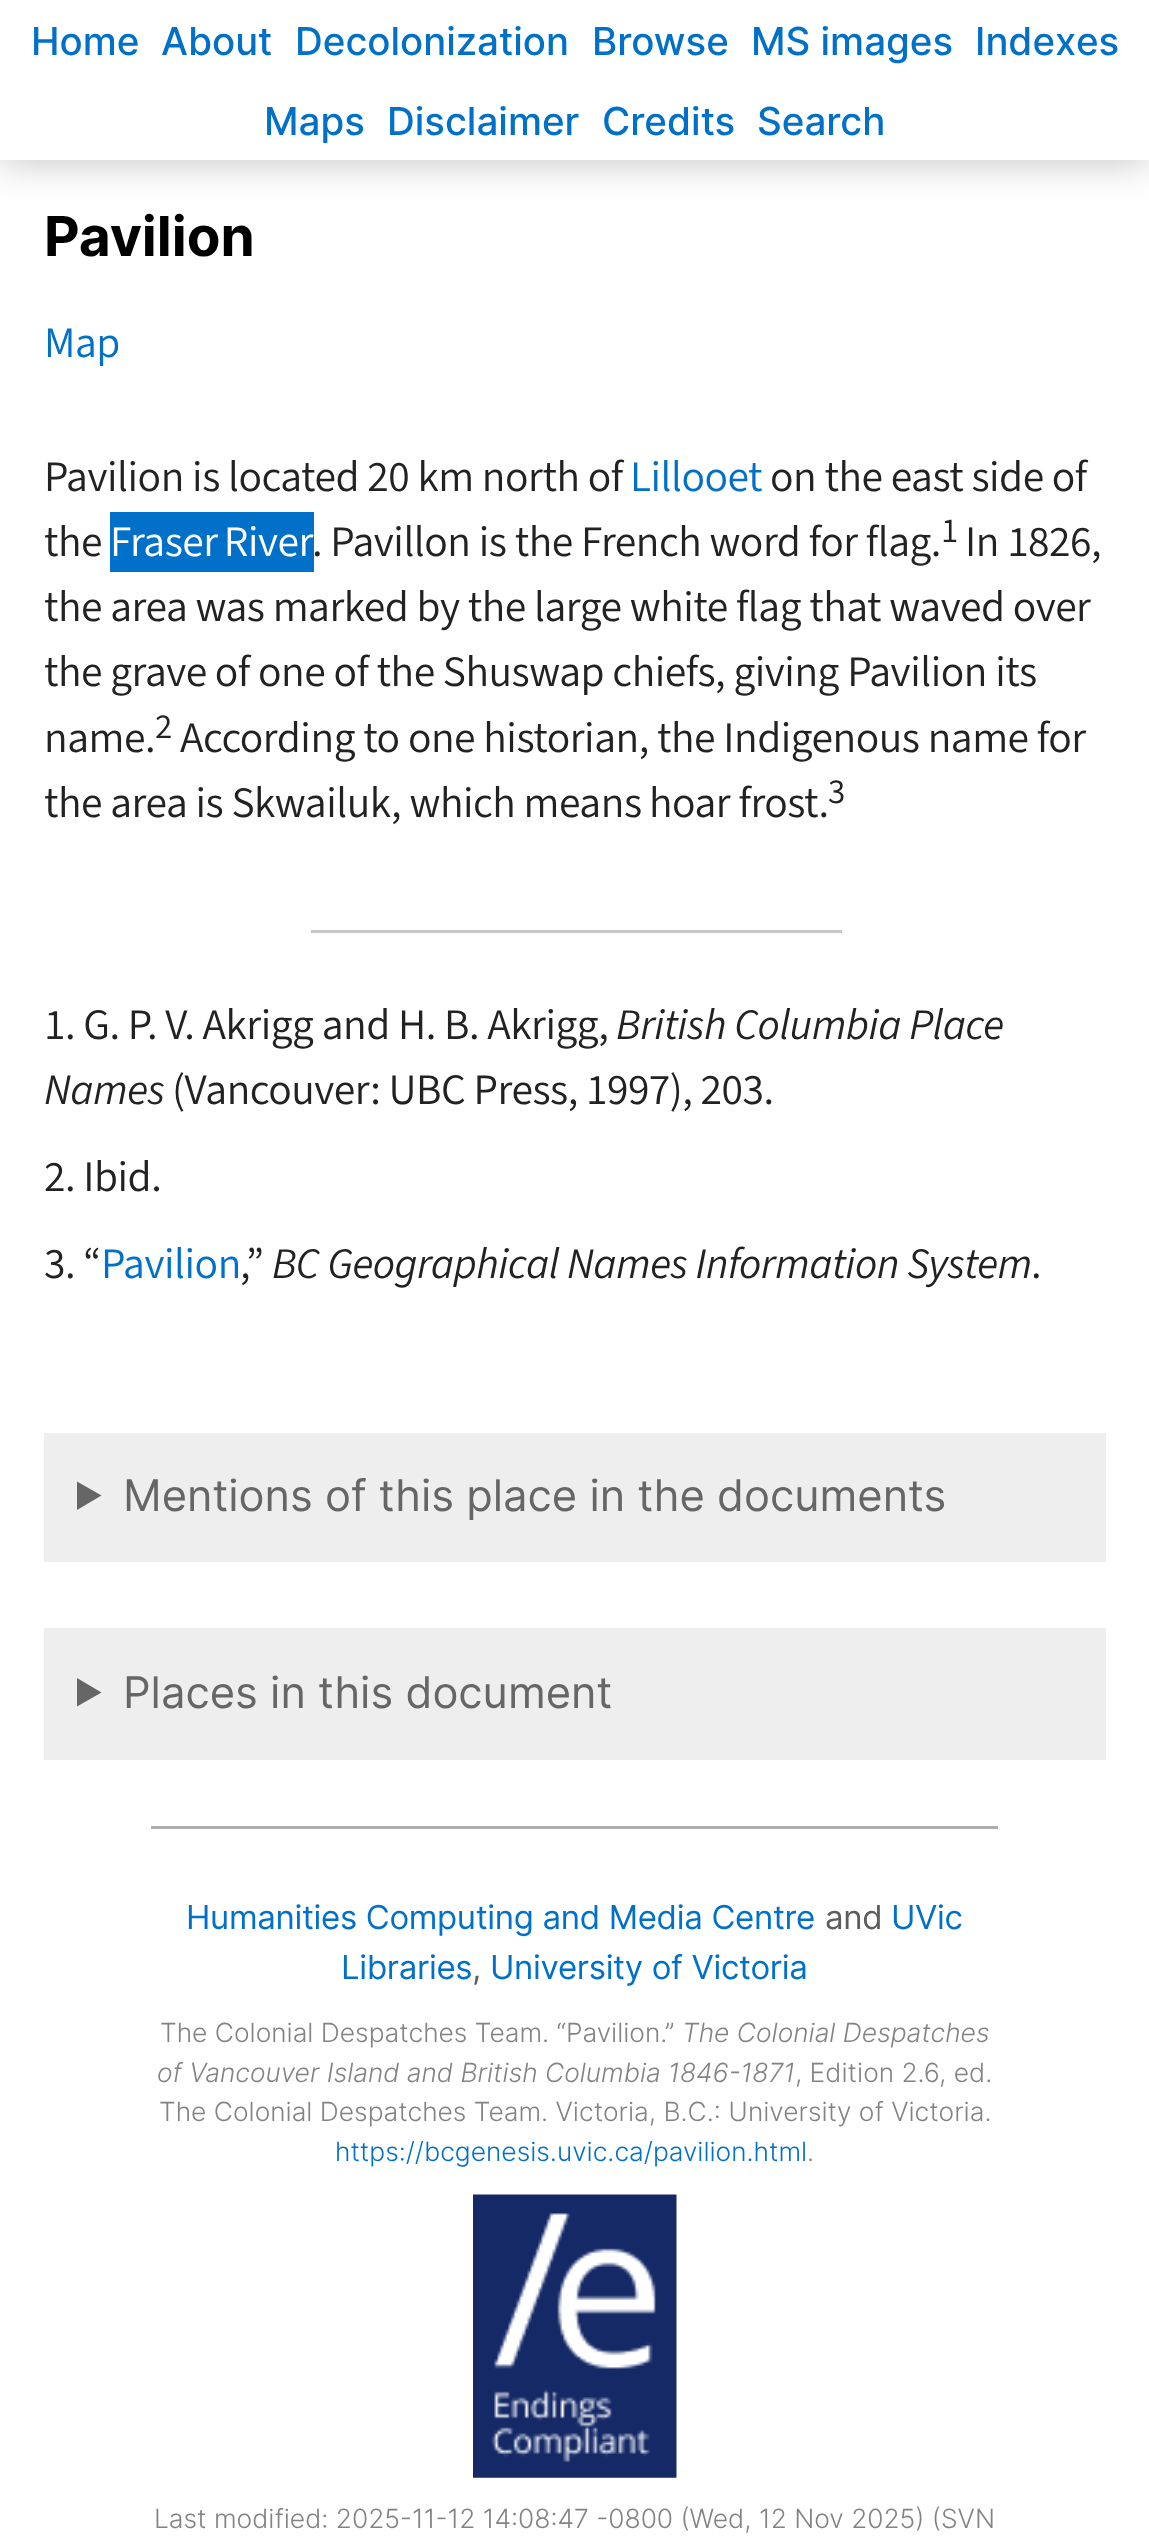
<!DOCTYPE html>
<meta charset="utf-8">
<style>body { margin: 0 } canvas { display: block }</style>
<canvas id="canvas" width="1149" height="2537"></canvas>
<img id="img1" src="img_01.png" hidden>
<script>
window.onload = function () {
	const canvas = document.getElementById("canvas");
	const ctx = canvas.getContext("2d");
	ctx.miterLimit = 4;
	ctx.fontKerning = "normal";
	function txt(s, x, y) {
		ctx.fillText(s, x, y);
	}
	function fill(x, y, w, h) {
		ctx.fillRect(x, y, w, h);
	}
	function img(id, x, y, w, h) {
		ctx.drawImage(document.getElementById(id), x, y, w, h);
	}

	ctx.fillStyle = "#FFFFFF";
	fill(0, 0, 1149, 2537);
	ctx.save();
	ctx.beginPath();
	ctx.moveTo(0, 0);
	ctx.lineTo(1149, 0);
	ctx.lineTo(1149, 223);
	ctx.lineTo(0, 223);
	ctx.closePath();
	ctx.moveTo(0, 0);
	ctx.lineTo(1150, 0);
	ctx.lineTo(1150, 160);
	ctx.lineTo(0, 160);
	ctx.closePath();
	ctx.clip("evenodd");
	ctx.fillStyle = "rgba(0, 0, 0, 0.25)";
	ctx.filter = "blur(20.5px)";
	ctx.beginPath();
	ctx.rect(0, 0, 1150, 160);
	ctx.fill();
	ctx.filter = "none";
	ctx.restore();
	ctx.fillStyle = "#0070C9";
	fill(110, 512, 204, 60);
	ctx.fillStyle = "#C7C7C7";
	fill(311, 930, 531, 3);
	ctx.fillStyle = "#EEEEEE";
	fill(44, 1433, 1062, 129);
	ctx.fillStyle = "#666666";
	ctx.beginPath();
	ctx.moveTo(77, 1481.5);
	ctx.lineTo(101.5, 1495.5);
	ctx.lineTo(77, 1510);
	ctx.closePath();
	ctx.fill();
	ctx.fillStyle = "#EEEEEE";
	fill(44, 1628, 1062, 132);
	ctx.fillStyle = "#666666";
	ctx.beginPath();
	ctx.moveTo(77, 1678);
	ctx.lineTo(101.5, 1692.5);
	ctx.lineTo(77, 1706.5);
	ctx.closePath();
	ctx.fill();
	ctx.fillStyle = "#AEAEAE";
	fill(151, 1826, 847, 3);
	img("img1", 473, 2194, 204, 284);
	ctx.font = "500 38.5px Inter";
	ctx.fillStyle = "#0070C9";
	txt("Home", 31, 55);
	txt("About", 161, 55);
	txt("Decolonization", 295, 55);
	txt("Browse", 592, 55);
	txt("MS images", 751, 55);
	txt("Inde", 975, 55);
	txt("x", 1055, 55);
	txt("es", 1076, 55);
	txt("Maps", 264, 135);
	txt("Disclaimer", 387, 135);
	txt("Credits", 602, 135);
	txt("Search", 757, 135);
	ctx.font = "bold 55px Inter";
	ctx.fillStyle = "#000000";
	txt("Pavilion", 44, 256);
	ctx.letterSpacing = "-0.48px";
	ctx.font = "43.5px 'Source Sans 3'";
	ctx.fillStyle = "#0070C9";
	txt("Map", 44, 357);
	ctx.fillStyle = "#222222";
	txt("Pavilion is located 20 km north of", 44, 491);
	ctx.fillStyle = "#0070C9";
	txt("Lillooet", 630, 491);
	ctx.fillStyle = "#222222";
	txt("on the east side of", 770, 491);
	txt("the", 44, 556);
	ctx.wordSpacing = "-2px";
	ctx.fillStyle = "#FFFFFF";
	txt("Fraser River", 110, 556);
	ctx.wordSpacing = "0px";
	ctx.fillStyle = "#222222";
	txt(". Pavillon is the French word for flag.", 312, 556);
	ctx.font = "35px 'Source Sans 3'";
	txt("1", 941, 542);
	ctx.font = "43.5px 'Source Sans 3'";
	txt("In 1826,", 965, 556);
	txt("the area was marked by the large white flag that waved over", 44, 621);
	txt("the grave of one of the Shuswap chiefs, giving Pavilion its", 44, 686);
	txt("name.", 44, 752);
	ctx.font = "35px 'Source Sans 3'";
	txt("2", 155, 738);
	ctx.font = "43.5px 'Source Sans 3'";
	txt("According to one historian, the Indigenous name for", 180, 752);
	txt("the area is Skwailuk, which means", 44, 817);
	txt("hoar frost.", 649, 817);
	ctx.font = "35px 'Source Sans 3'";
	txt("3", 828, 803);
	ctx.font = "43.5px 'Source Sans 3'";
	txt("1. G. P. V. Akrigg and H. B. Akrigg,", 44, 1039);
	ctx.font = "italic 43.5px 'Source Sans 3'";
	txt("British Columbia Place", 616, 1039);
	txt("Names", 44, 1104);
	ctx.font = "43.5px 'Source Sans 3'";
	txt("(Vancouver: UBC Press, 1997), 203.", 172, 1104);
	txt("2. Ibid.", 44, 1191);
	txt("3. “", 44, 1278);
	ctx.fillStyle = "#0070C9";
	txt("Pavilion", 101, 1278);
	ctx.fillStyle = "#222222";
	txt("”", 246, 1278);
	ctx.font = "italic 43.5px 'Source Sans 3'";
	txt("BC Geographical Names Information System", 272, 1278);
	ctx.font = "43.5px 'Source Sans 3'";
	txt(",", 240, 1278);
	txt(".", 1031, 1278);
	ctx.letterSpacing = "0px";
	ctx.font = "43.5px Inter";
	ctx.fillStyle = "#666666";
	txt("Mentions of this place in the documents", 123, 1511);
	txt("Places in this document", 123, 1708);
	ctx.letterSpacing = "-0.35px";
	ctx.font = "33px Inter";
	ctx.fillStyle = "#0070C9";
	txt("Humanities Computing and Media Centre", 186, 1929);
	ctx.fillStyle = "#5D5D5D";
	txt("and", 825, 1929);
	ctx.fillStyle = "#0070C9";
	txt("UVic", 891, 1929);
	txt("Libraries", 341, 1979);
	ctx.fillStyle = "#5D5D5D";
	txt(",", 472, 1979);
	ctx.fillStyle = "#0070C9";
	txt("University of Victoria", 490, 1979);
	ctx.letterSpacing = "0px";
	ctx.font = "300 26.4px Inter";
	ctx.fillStyle = "#838383";
	txt("The Colonial Despatches Team. “Pavilion.", 160, 2042);
	txt("”", 665, 2042);
	ctx.font = "italic 300 26.4px Inter";
	txt("The Colonial Despatches", 682, 2042);
	txt("of Vancouver Island and British Columbia 1846-1871", 157, 2082);
	ctx.font = "300 26.4px Inter";
	txt(", Edition 2.6, ed.", 795, 2082);
	txt("The Colonial Despatches Team. Victoria, B.C.: University of Victoria.", 159, 2121);
	ctx.fillStyle = "#0070C9";
	txt("https://bcgenesis.uvic.ca/pavilion.html", 335, 2161);
	ctx.fillStyle = "#838383";
	txt(".", 807, 2161);
	txt("Last modified: 2025-11-12 14:08:47 -0800 (Wed, 12 Nov 2025) (SVN", 154, 2528);
};
</script>
